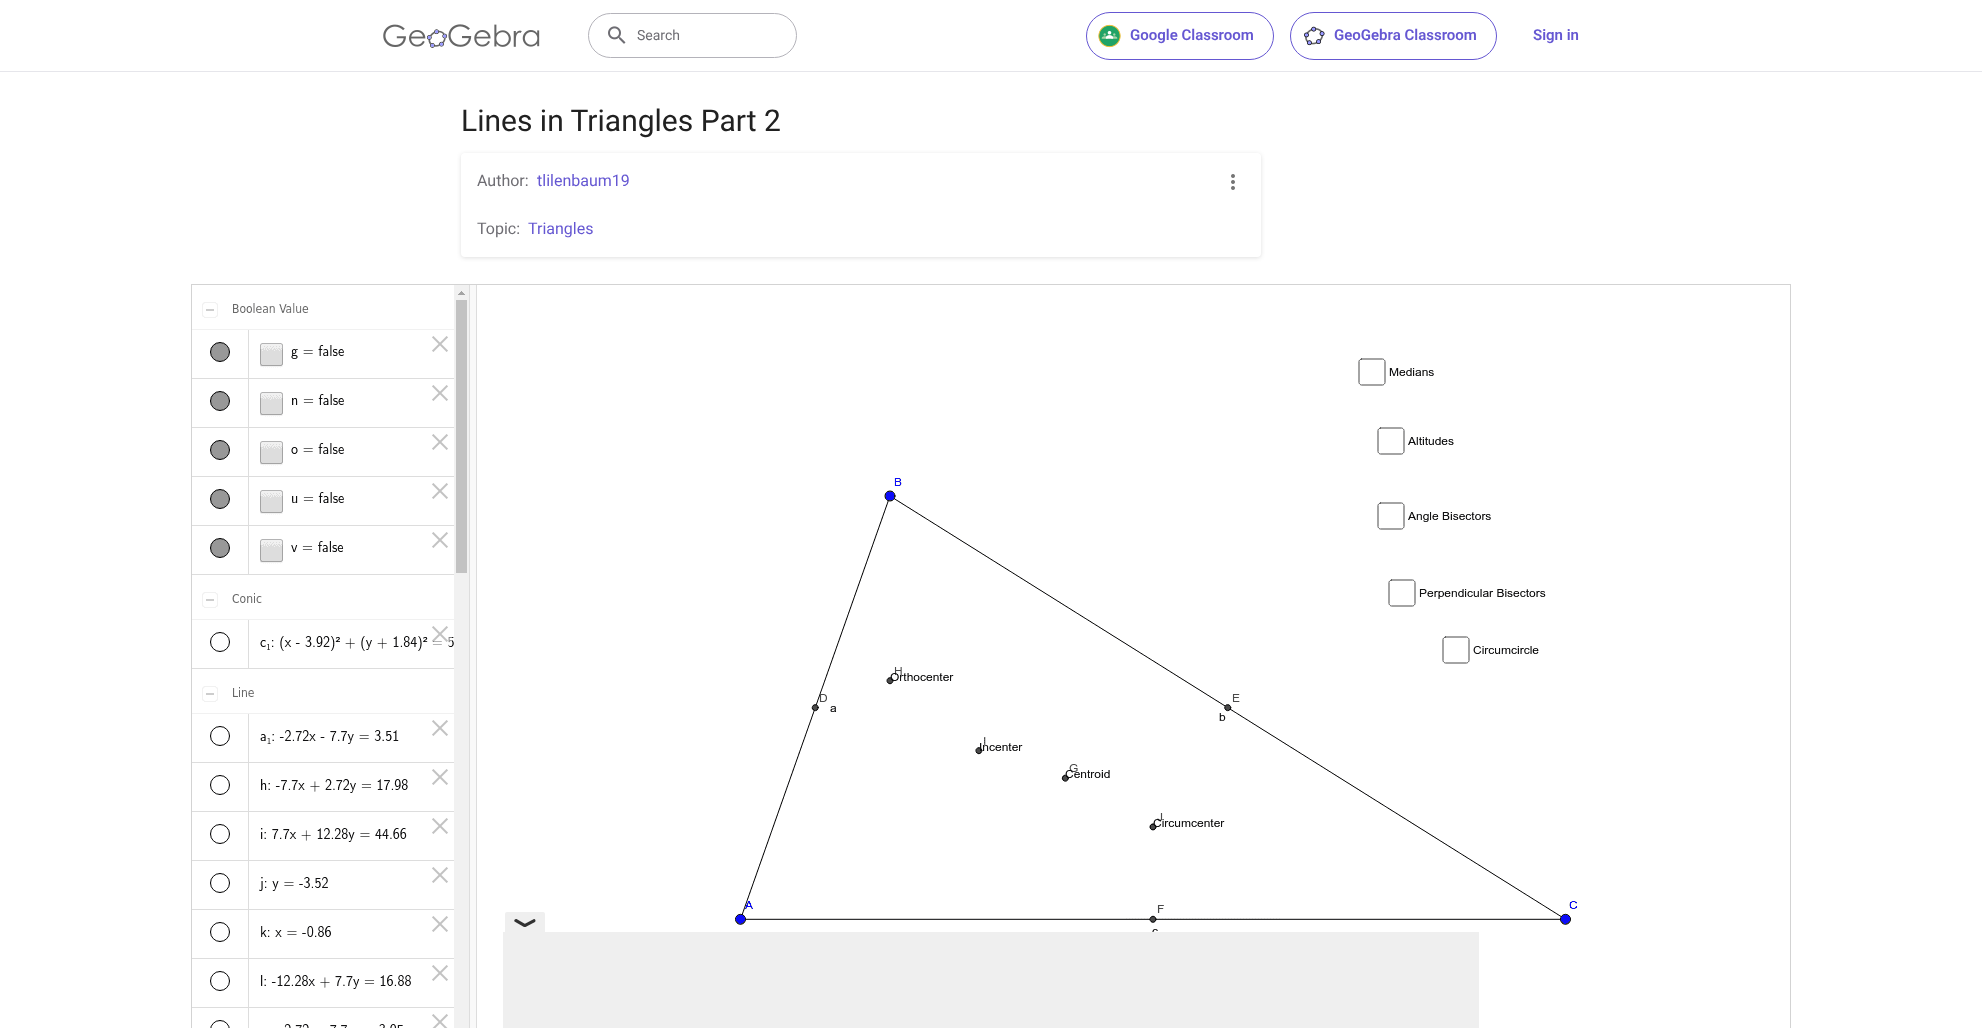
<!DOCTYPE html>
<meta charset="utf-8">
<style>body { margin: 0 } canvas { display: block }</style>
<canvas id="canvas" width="1982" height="1028"></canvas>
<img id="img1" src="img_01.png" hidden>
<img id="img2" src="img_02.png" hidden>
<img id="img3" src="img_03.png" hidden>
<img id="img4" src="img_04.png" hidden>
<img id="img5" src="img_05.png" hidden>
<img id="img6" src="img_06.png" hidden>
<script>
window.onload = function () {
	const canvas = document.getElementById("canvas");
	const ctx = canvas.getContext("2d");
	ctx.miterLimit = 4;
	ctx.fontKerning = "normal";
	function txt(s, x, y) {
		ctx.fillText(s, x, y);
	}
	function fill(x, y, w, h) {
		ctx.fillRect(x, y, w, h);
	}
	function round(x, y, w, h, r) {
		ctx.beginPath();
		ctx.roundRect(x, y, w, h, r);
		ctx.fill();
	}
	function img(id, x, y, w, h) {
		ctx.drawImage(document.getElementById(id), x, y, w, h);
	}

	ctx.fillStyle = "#FFFFFF";
	fill(0, 0, 1982, 1028);
	ctx.fillStyle = "#E6E6EB";
	fill(0, 71, 1982, 1);
	img("img1", 383, 24, 157, 24);
	ctx.beginPath();
	ctx.roundRect(588.5, 13.5, 208, 44, 22);
	ctx.strokeStyle = "#B4B3BA";
	ctx.stroke();
	img("img2", 608, 26, 18, 18);
	ctx.beginPath();
	ctx.roundRect(1086.5, 12.5, 187, 47, 23.5);
	ctx.strokeStyle = "#6557D2";
	ctx.stroke();
	img("img3", 1098, 24, 23, 24);
	ctx.beginPath();
	ctx.roundRect(1290.5, 12.5, 206, 47, 23.5);
	ctx.stroke();
	img("img4", 1304, 26, 21, 20);
	ctx.fillStyle = "rgba(28, 28, 31, 0.14)";
	ctx.filter = "blur(2px)";
	ctx.beginPath();
	ctx.roundRect(461, 154, 800, 104, 4);
	ctx.fill();
	ctx.filter = "none";
	ctx.fillStyle = "#FFFFFF";
	round(461, 153, 800, 104, 4);
	img("img5", 1231, 174, 4, 16);
	img("img6", 192, 285, 1386, 743);
	ctx.strokeStyle = "#D3D3D3";
	ctx.strokeRect(191.5, 284.5, 1599, 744);
	ctx.fillStyle = "#EFEFEF";
	ctx.beginPath();
	ctx.roundRect(505, 912, 40, 20, [2, 2, 0, 0]);
	ctx.fill();
	ctx.fillStyle = "#313131";
	ctx.beginPath();
	ctx.moveTo(516.5, 919);
	ctx.lineTo(526, 924.5);
	ctx.bezierCurveTo(526.5, 926, 525, 927.5, 524, 927);
	ctx.lineTo(514.5, 921.5);
	ctx.bezierCurveTo(513.5, 920, 515.5, 918.5, 516.5, 919);
	ctx.closePath();
	ctx.fill();
	ctx.beginPath();
	ctx.moveTo(524.5, 924);
	ctx.lineTo(534, 919);
	ctx.bezierCurveTo(535.5, 919, 536, 921, 535, 922);
	ctx.lineTo(525.5, 927);
	ctx.bezierCurveTo(524, 927, 523.5, 925, 524.5, 924);
	ctx.closePath();
	ctx.fill();
	ctx.fillStyle = "#EFEFEF";
	fill(503, 932, 976, 96);
	ctx.font = "14px Roboto";
	ctx.fillStyle = "#6E6D73";
	txt("Search", 637, 40);
	ctx.font = "600 15px Roboto";
	ctx.fillStyle = "#6557D2";
	txt("Google Classroom", 1130, 40);
	txt("GeoGebra Classroom", 1334, 40);
	txt("Sign in", 1533, 40);
	ctx.font = "30px Roboto";
	ctx.fillStyle = "#212121";
	txt("Lines in Triangles Part 2", 461, 131);
	ctx.font = "16px Roboto";
	ctx.fillStyle = "#6E6D73";
	txt("Author:", 477, 186);
	ctx.fillStyle = "#6557D2";
	txt("tlilenbaum19", 537, 186);
	ctx.fillStyle = "#6E6D73";
	txt("Topic:", 477, 234);
	ctx.fillStyle = "#6557D2";
	txt("Triangles", 528, 234);
};
</script>
